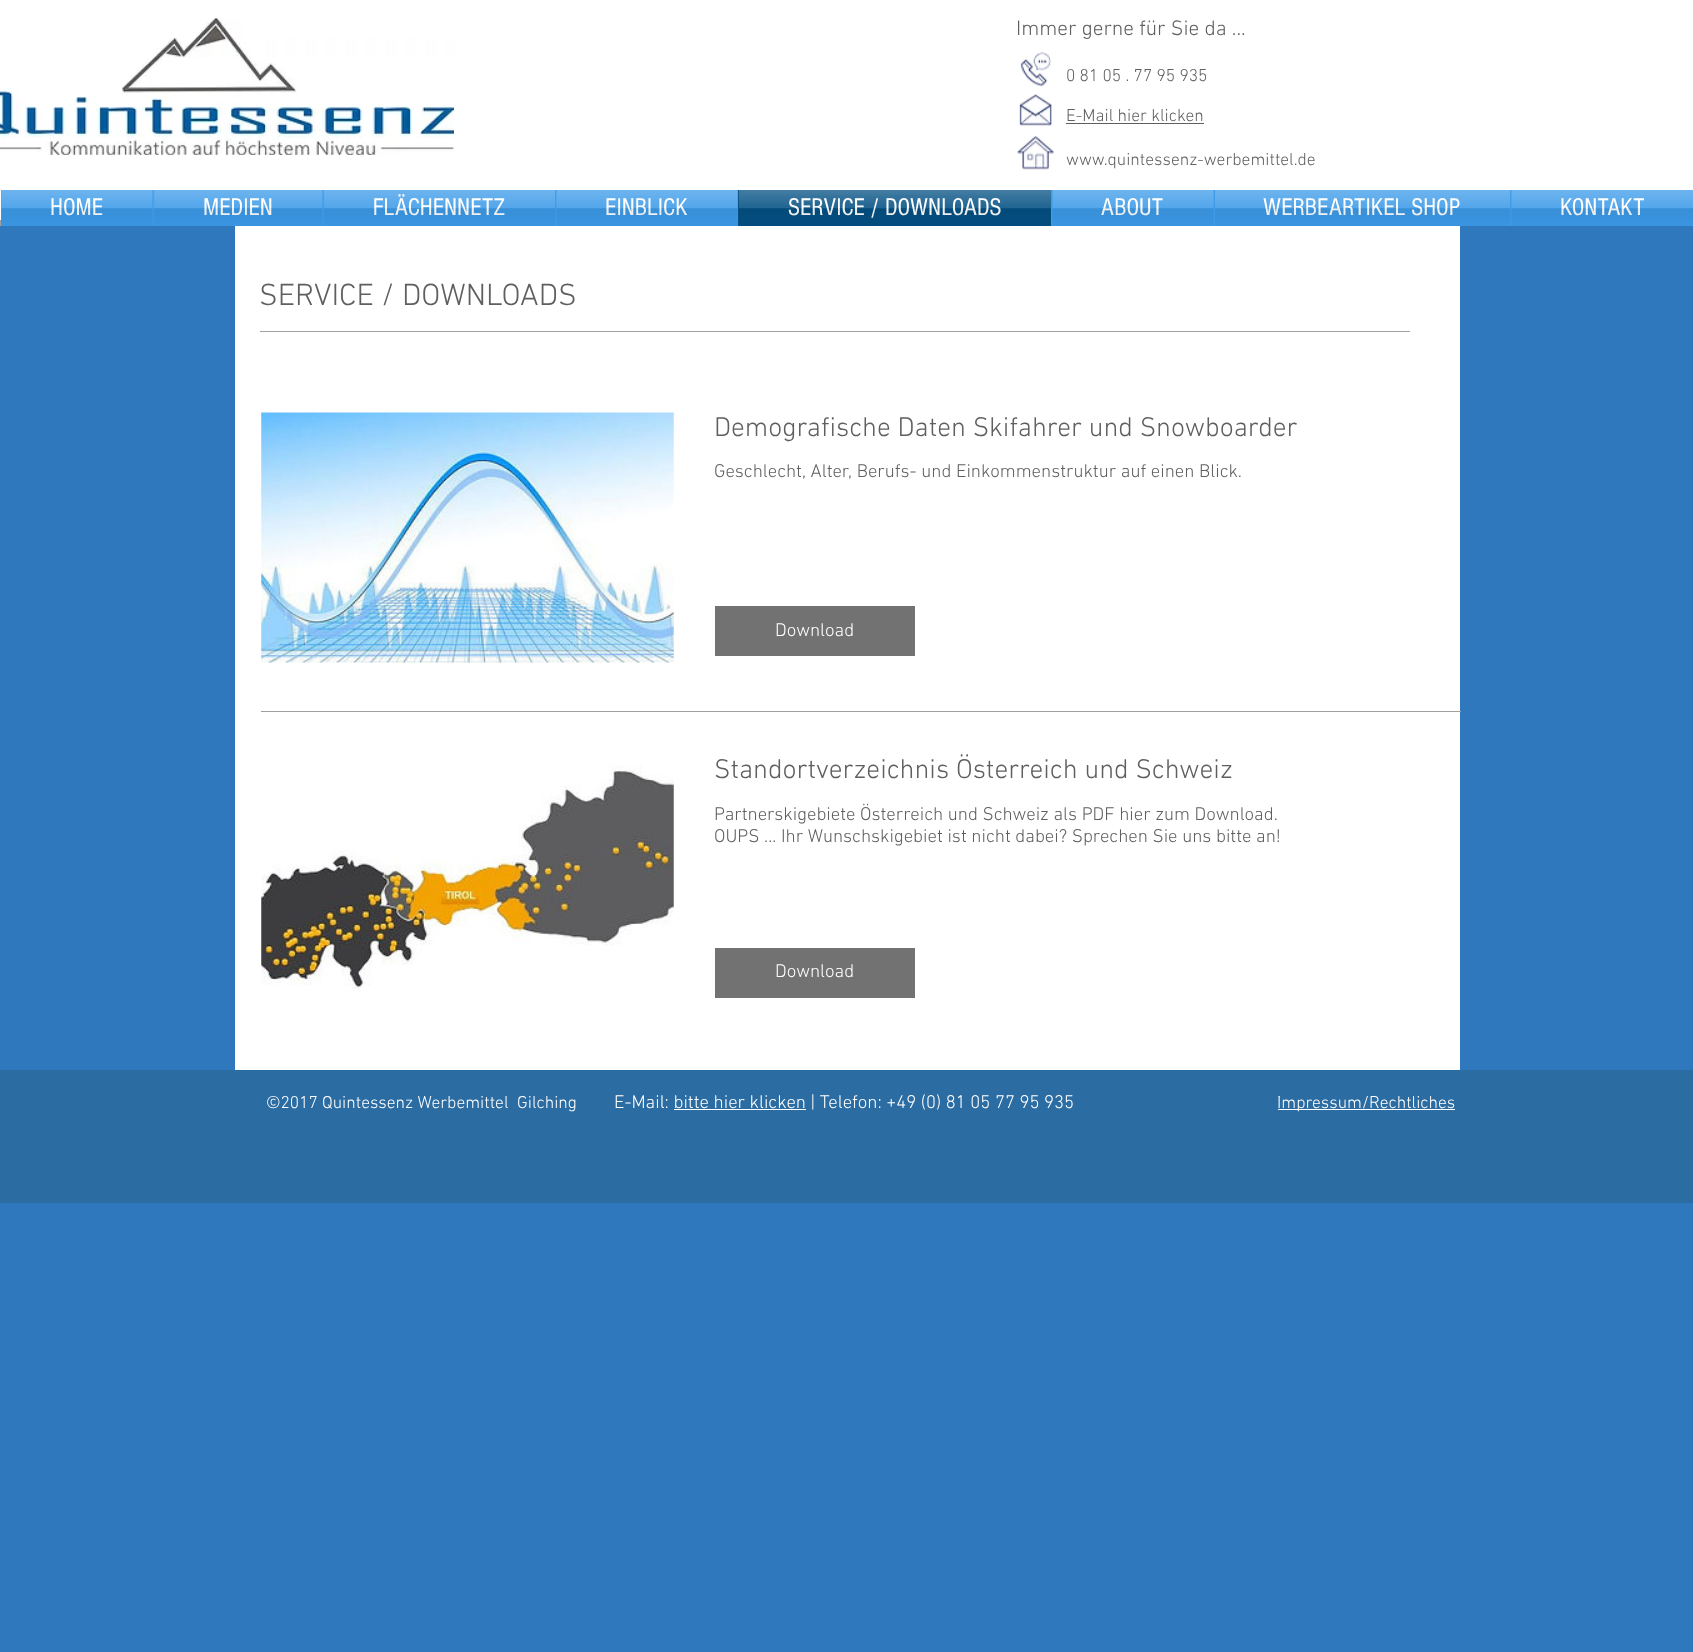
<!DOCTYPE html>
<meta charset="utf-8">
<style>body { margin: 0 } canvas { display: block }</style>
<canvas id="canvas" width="1693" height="1652"></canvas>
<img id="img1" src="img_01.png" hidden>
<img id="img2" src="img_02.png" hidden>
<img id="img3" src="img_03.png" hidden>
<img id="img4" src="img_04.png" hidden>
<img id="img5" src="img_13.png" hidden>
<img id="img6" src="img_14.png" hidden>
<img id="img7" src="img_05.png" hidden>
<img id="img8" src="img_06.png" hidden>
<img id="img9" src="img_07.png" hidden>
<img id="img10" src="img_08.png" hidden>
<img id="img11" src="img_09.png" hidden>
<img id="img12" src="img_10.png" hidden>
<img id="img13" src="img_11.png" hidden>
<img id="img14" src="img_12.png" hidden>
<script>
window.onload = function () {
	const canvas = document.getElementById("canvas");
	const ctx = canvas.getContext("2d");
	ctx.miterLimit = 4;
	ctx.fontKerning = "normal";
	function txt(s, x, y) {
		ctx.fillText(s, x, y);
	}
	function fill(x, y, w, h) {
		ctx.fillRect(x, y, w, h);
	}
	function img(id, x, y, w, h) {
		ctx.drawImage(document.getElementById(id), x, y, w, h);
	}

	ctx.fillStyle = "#3078BE";
	fill(0, 0, 1693, 1652);
	ctx.fillStyle = "#FFFFFF";
	fill(0, 0, 1693, 220);
	ctx.fillStyle = "#A0A09F";
	fill(0, 220, 1, 6);
	img("img1", 0, 18, 454, 137);
	img("img2", 1020, 52, 32, 35);
	img("img3", 1019, 94, 33, 32);
	ctx.fillStyle = "#605E5E";
	fill(1066, 123, 138, 1);
	img("img4", 1017, 136, 37, 34);
	ctx.fillStyle = "#3D9BE9";
	fill(1, 190, 737, 36);
	ctx.fillStyle = "#045184";
	fill(738, 190, 313, 36);
	ctx.fillStyle = "#3D9BE9";
	fill(1051, 190, 642, 36);
	ctx.fillStyle = "#FFFFFF";
	fill(235, 226, 1225, 844);
	img("img5", 261, 412, 413, 251);
	ctx.fillStyle = "#727272";
	fill(715, 606, 200, 50);
	ctx.fillStyle = "#A0A09F";
	fill(261, 711, 1200, 1);
	img("img6", 261, 765, 413, 226);
	ctx.fillStyle = "#727272";
	fill(715, 948, 200, 50);
	ctx.fillStyle = "#A0A09F";
	fill(260, 331, 1150, 1);
	ctx.fillStyle = "#2B6CA3";
	fill(0, 1070, 1693, 133);
	ctx.fillStyle = "#FFFFFF";
	fill(674, 1109, 132, 1);
	fill(1278, 1109, 177, 1);
	ctx.font = "300 21.25px 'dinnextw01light'";
	ctx.fillStyle = "#605E5E";
	txt("Immer gerne für Sie da ...", 1016, 35);
	ctx.font = "300 17.5px 'dinnextw01light'";
	txt("0 81 05 . 77 95 935", 1066, 81);
	txt("E-Mail hier klicken", 1066, 121);
	txt("www.quintessenz-werbemittel.de", 1066, 165);
	ctx.font = "25px 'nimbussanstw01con'";
	ctx.fillStyle = "#FFFFFF";
	txt("HOME", 50, 215);
	img("img7", 1, 190, 152, 36);
	txt("MEDIEN", 203, 215);
	img("img8", 153, 190, 170, 36);
	txt("FLÄCHENNETZ", 373, 215);
	img("img9", 323, 190, 232, 36);
	txt("EINBLICK", 605, 215);
	img("img10", 555, 190, 183, 36);
	txt("SERVICE / DOWNLOADS", 788, 215);
	img("img11", 738, 190, 313, 36);
	txt("ABOUT", 1101, 215);
	img("img12", 1052, 190, 162, 36);
	txt("WERBEARTIKEL SHOP", 1263, 215);
	img("img13", 1215, 190, 295, 36);
	txt("KONTAKT", 1560, 215);
	img("img14", 1510, 190, 183, 36);
	ctx.font = "300 31.25px 'dinnextw01light'";
	ctx.fillStyle = "#605E5E";
	txt("SERVICE / DOWNLOADS", 259, 305);
	ctx.font = "300 27.5px 'dinnextw01light'";
	txt("Demografische Daten Skifahrer und Snowboarder", 714, 436);
	ctx.font = "300 18.75px 'dinnextw01light'";
	txt("Geschlecht, Alter, Berufs- und Einkommenstruktur auf einen Blick.", 714, 477);
	ctx.fillStyle = "#FFFFFF";
	txt("Download", 775, 636);
	ctx.font = "300 27.5px 'dinnextw01light'";
	ctx.fillStyle = "#605E5E";
	txt("Standortverzeichnis Österreich und Schweiz", 714, 778);
	ctx.font = "300 18.75px 'dinnextw01light'";
	txt("Partnerskigebiete Österreich und Schweiz als PDF hier zum Download.", 714, 820);
	txt("OUPS ... Ihr Wunschskigebiet ist nicht dabei? Sprechen Sie uns bitte an!", 714, 842);
	ctx.fillStyle = "#FFFFFF";
	txt("Download", 775, 977);
	ctx.font = "300 17.5px 'dinnextw01light'";
	txt("©2017 Quintessenz Werbemittel  Gilching", 266, 1108);
	ctx.font = "300 18.75px 'dinnextw01light'";
	txt("E-Mail: bitte hier klicken | Telefon: +49 (0) 81 05 77 95 935", 614, 1108);
	ctx.font = "300 17.5px 'dinnextw01light'";
	txt("Impressum/Rechtliches", 1277, 1108);
};
</script>
